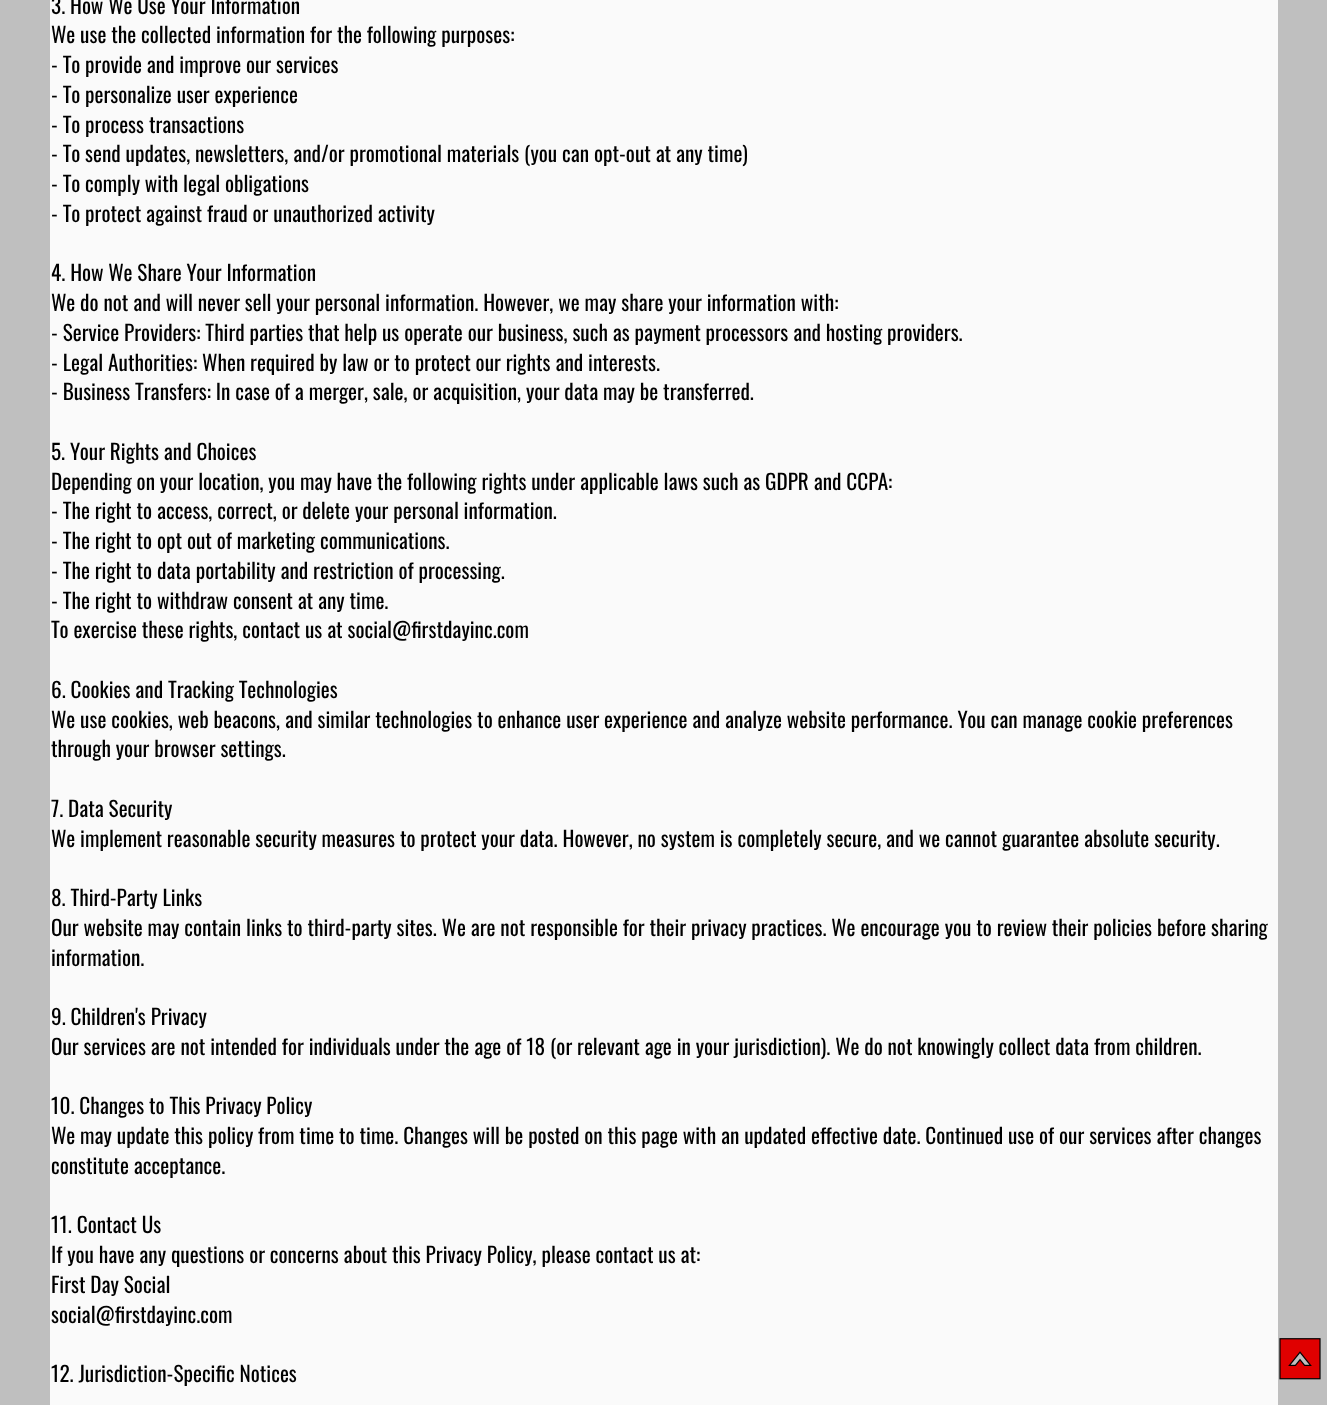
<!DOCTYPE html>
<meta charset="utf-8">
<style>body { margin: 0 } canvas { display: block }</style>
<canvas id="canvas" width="1327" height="1405"></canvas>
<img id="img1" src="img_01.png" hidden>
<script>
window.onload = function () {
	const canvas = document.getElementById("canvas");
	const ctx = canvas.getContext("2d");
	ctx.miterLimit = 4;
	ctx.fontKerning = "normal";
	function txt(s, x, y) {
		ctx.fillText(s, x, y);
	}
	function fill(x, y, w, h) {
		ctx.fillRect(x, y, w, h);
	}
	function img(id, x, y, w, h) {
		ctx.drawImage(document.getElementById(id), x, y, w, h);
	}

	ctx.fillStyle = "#BFBFBF";
	fill(0, 0, 1327, 1405);
	ctx.fillStyle = "#FAFAFA";
	fill(50, 0, 1228, 1405);
	img("img1", 1279, 1338, 42, 42);
	ctx.font = "21.25px Oswald";
	ctx.fillStyle = "#000000";
	txt("3. How We Use Your Information", 51, 14);
	txt("We use the collected information for the following purposes:", 51, 43);
	txt("- To provide and improve our services", 51, 73);
	txt("- To personalize user experience", 51, 103);
	txt("- To process transactions", 51, 133);
	txt("- To send updates, newsletters, and/or promotional materials (you can opt-out at any time)", 51, 162);
	txt("- To comply with legal obligations", 51, 192);
	txt("- To protect against fraud or unauthorized activity", 51, 222);
	txt("4. How We Share Your Information", 51, 281);
	txt("We do not and will never sell your personal information. However, we may share your information with:", 51, 311);
	txt("- Service Providers: Third parties that help us operate our business, such as payment processors and hosting providers.", 51, 341);
	txt("- Legal Authorities: When required by law or to protect our rights and interests.", 51, 371);
	txt("- Business Transfers: In case of a merger, sale, or acquisition, your data may be transferred.", 51, 400);
	txt("5. Your Rights and Choices", 51, 460);
	txt("Depending on your location, you may have the following rights under applicable laws such as GDPR and CCPA:", 51, 490);
	txt("- The right to access, correct, or delete your personal information.", 51, 519);
	txt("- The right to opt out of marketing communications.", 51, 549);
	txt("- The right to data portability and restriction of processing.", 51, 579);
	txt("- The right to withdraw consent at any time.", 51, 609);
	txt("To exercise these rights, contact us at social@firstdayinc.com", 51, 638);
	txt("6. Cookies and Tracking Technologies", 51, 698);
	txt("We use cookies, web beacons, and similar technologies to enhance user experience and analyze website performance. You can manage cookie preferences", 51, 728);
	txt("through your browser settings.", 51, 757);
	txt("7. Data Security", 51, 817);
	txt("We implement reasonable security measures to protect your data. However, no system is completely secure, and we cannot guarantee absolute security.", 51, 847);
	txt("8. Third-Party Links", 51, 906);
	txt("Our website may contain links to third-party sites. We are not responsible for their privacy practices. We encourage you to review their policies before sharing", 51, 936);
	txt("information.", 51, 966);
	txt("9. Children's Privacy", 51, 1025);
	txt("Our services are not intended for individuals under the age of 18 (or relevant age in your jurisdiction). We do not knowingly collect data from children.", 51, 1055);
	txt("10. Changes to This Privacy Policy", 51, 1114);
	txt("We may update this policy from time to time. Changes will be posted on this page with an updated effective date. Continued use of our services after changes", 51, 1144);
	txt("constitute acceptance.", 51, 1174);
	txt("11. Contact Us", 51, 1233);
	txt("If you have any questions or concerns about this Privacy Policy, please contact us at:", 51, 1263);
	txt("First Day Social", 51, 1293);
	txt("social@firstdayinc.com", 51, 1323);
	txt("12. Jurisdiction-Specific Notices", 51, 1382);
};
</script>
